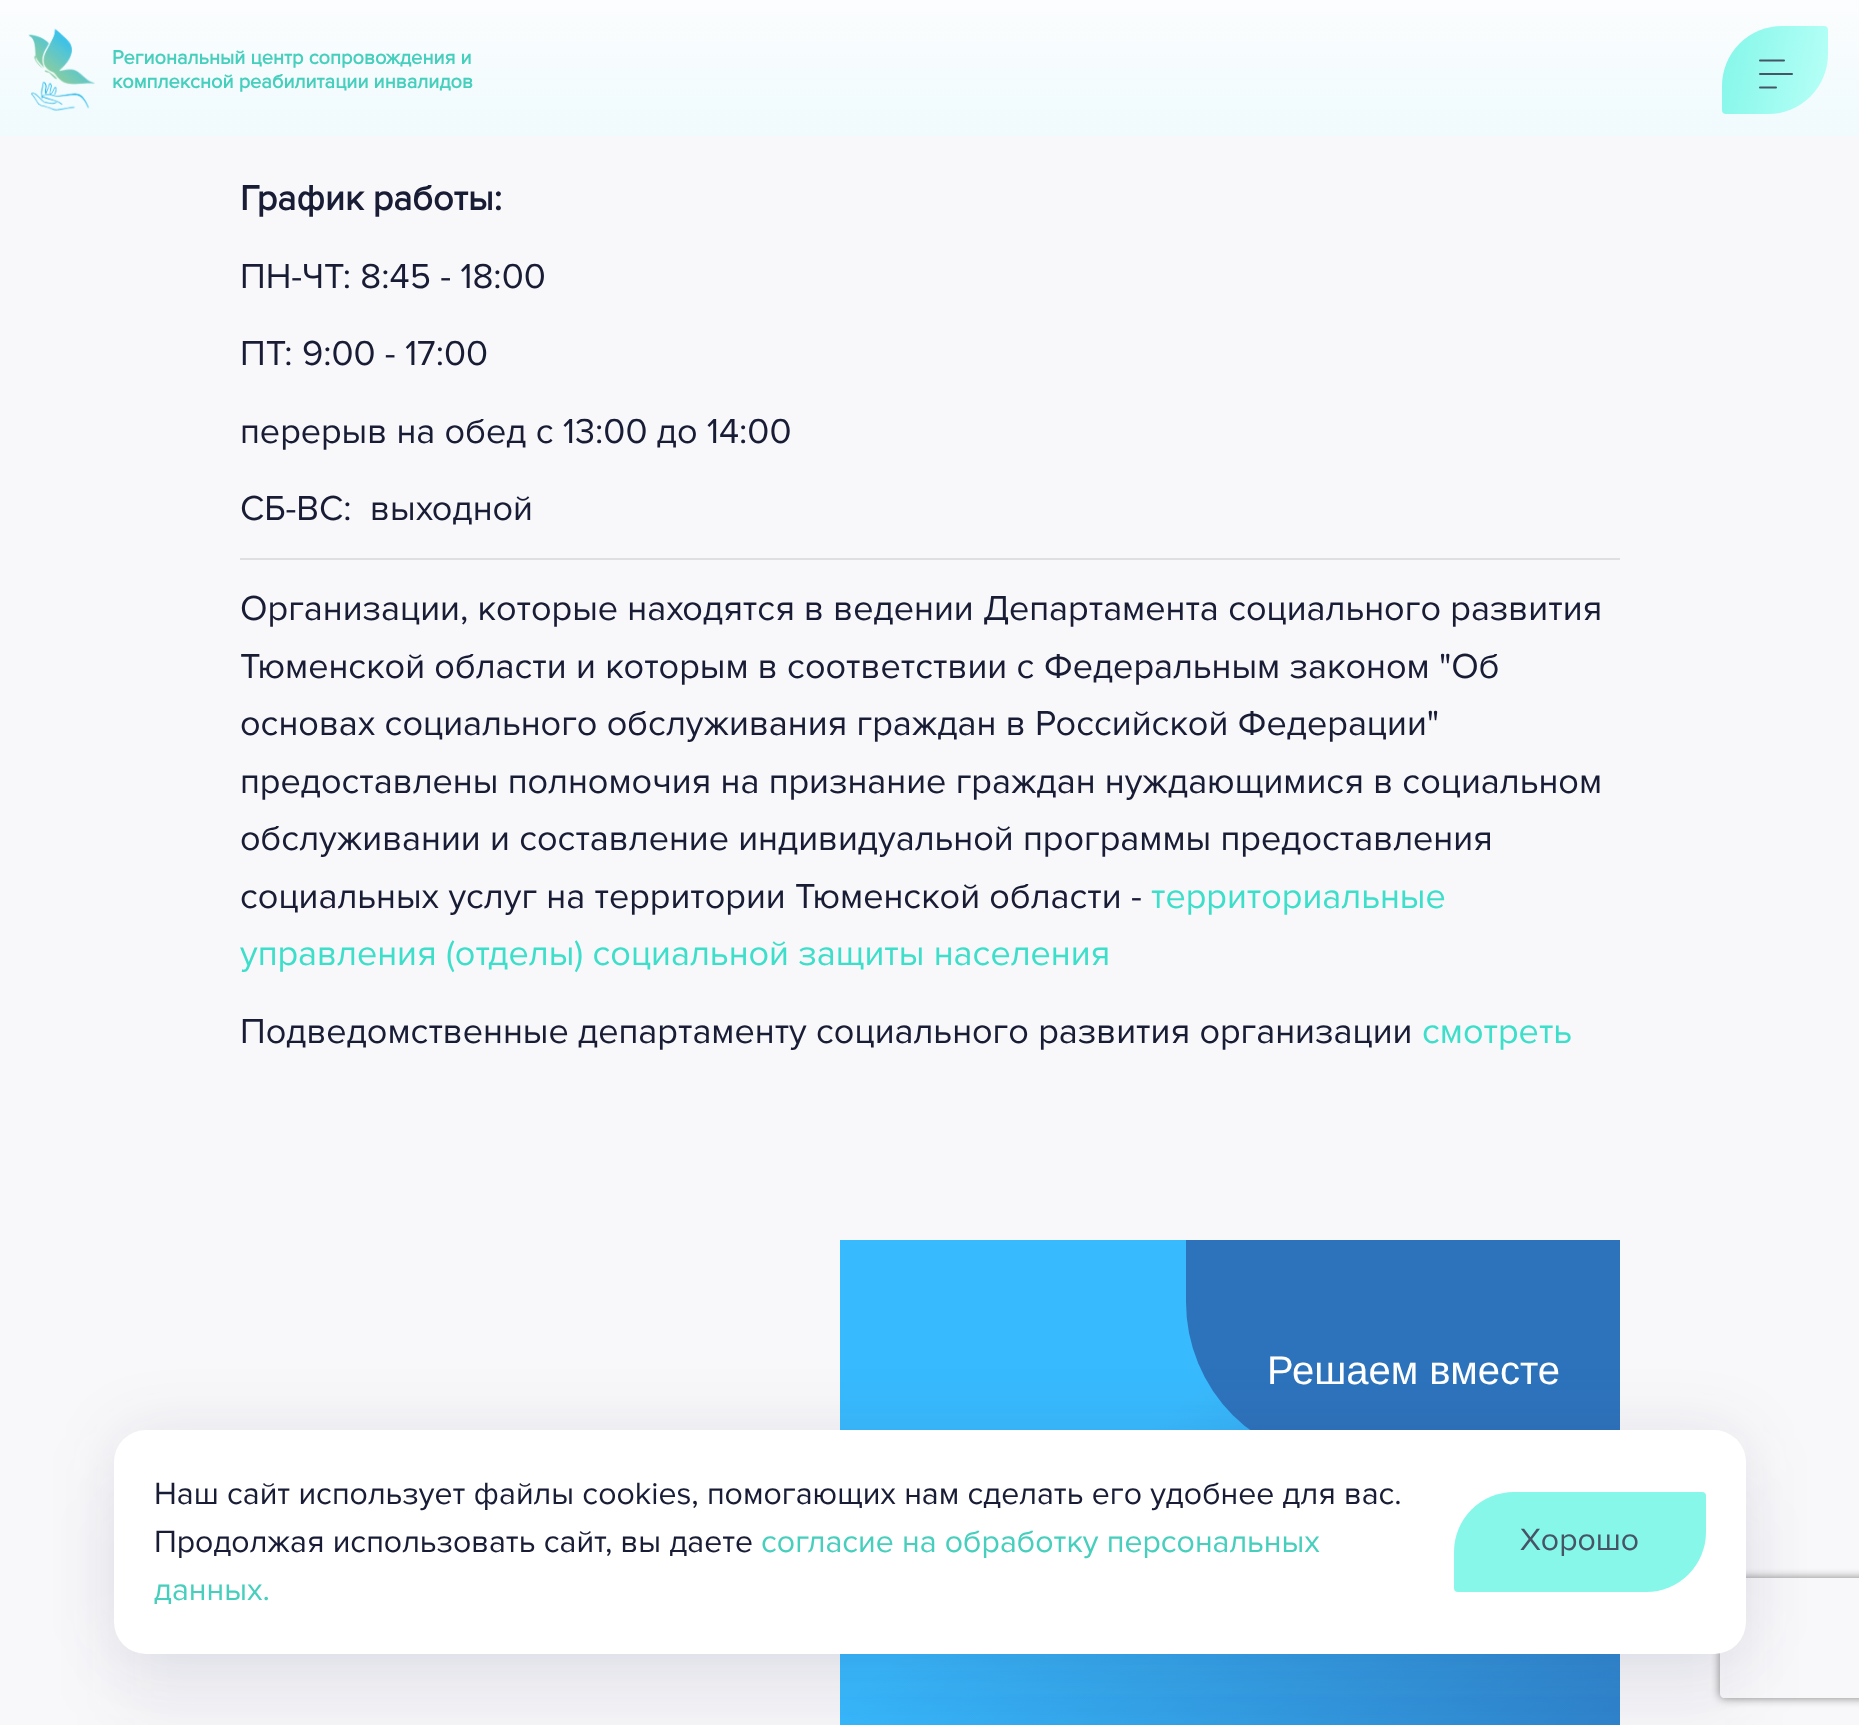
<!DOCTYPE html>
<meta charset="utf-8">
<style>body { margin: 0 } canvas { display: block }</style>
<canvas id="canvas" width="1859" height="1725"></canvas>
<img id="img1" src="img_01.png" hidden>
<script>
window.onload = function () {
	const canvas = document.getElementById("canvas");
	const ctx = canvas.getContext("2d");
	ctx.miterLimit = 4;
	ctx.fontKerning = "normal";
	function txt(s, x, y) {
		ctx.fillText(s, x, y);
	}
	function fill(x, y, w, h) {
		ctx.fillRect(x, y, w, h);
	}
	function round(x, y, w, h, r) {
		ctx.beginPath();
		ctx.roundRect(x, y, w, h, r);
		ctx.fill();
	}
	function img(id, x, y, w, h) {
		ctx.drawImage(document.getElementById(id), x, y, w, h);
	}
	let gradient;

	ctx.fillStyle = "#F8F8FA";
	fill(0, 0, 1859, 1725);
	gradient = ctx.createLinearGradient(930, 136, 930, -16);
	gradient.addColorStop(0.16, "rgba(239, 252, 255, 0.75)");
	gradient.addColorStop(1, "rgba(255, 255, 255, 0.75)");
	ctx.fillStyle = gradient;
	fill(0, 0, 1859, 136);
	img("img1", 28, 28, 67, 83);
	gradient = ctx.createLinearGradient(1716, 59, 1834, 81);
	gradient.addColorStop(0.07, "#87F7EA");
	gradient.addColorStop(0.93, "#B4FFF6");
	ctx.fillStyle = gradient;
	ctx.beginPath();
	ctx.roundRect(1722, 26, 106, 88, [60, 4, 60, 4]);
	ctx.fill();
	ctx.beginPath();
	ctx.moveTo(1760, 60.5);
	ctx.lineTo(1784, 60.5);
	ctx.moveTo(1760, 74);
	ctx.lineTo(1792, 74);
	ctx.moveTo(1760, 87.5);
	ctx.lineTo(1776, 87.5);
	ctx.strokeStyle = "#465466";
	ctx.lineWidth = 2;
	ctx.lineCap = "round";
	ctx.stroke();
	ctx.fillStyle = "#DFDFE1";
	fill(240, 558, 1380, 2);
	gradient = ctx.createLinearGradient(788, 1286, 1672, 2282);
	gradient.addColorStop(0.26, "#38BAFE");
	gradient.addColorStop(0.79, "#2D73BC");
	ctx.fillStyle = gradient;
	fill(840, 1240, 780, 485);
	ctx.fillStyle = "#2D73BC";
	ctx.beginPath();
	ctx.roundRect(1186, 1240, 434, 222, [0, 0, 0, 160]);
	ctx.fill();
	ctx.fillStyle = "rgba(45, 45, 102, 0.05)";
	ctx.filter = "blur(32px)";
	ctx.beginPath();
	ctx.roundRect(114, 1494, 1632, 224, 32);
	ctx.fill();
	ctx.filter = "none";
	ctx.fillStyle = "rgba(45, 45, 102, 0.1)";
	ctx.filter = "blur(32px)";
	ctx.beginPath();
	ctx.roundRect(114, 1430, 1632, 224, 32);
	ctx.fill();
	ctx.filter = "none";
	ctx.save();
	ctx.beginPath();
	ctx.moveTo(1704, 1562);
	ctx.lineTo(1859, 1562);
	ctx.lineTo(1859, 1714);
	ctx.lineTo(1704, 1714);
	ctx.closePath();
	ctx.moveTo(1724, 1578);
	ctx.lineTo(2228, 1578);
	ctx.bezierCurveTo(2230, 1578, 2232, 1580, 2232, 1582);
	ctx.lineTo(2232, 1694);
	ctx.bezierCurveTo(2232, 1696, 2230, 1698, 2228, 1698);
	ctx.lineTo(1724, 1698);
	ctx.bezierCurveTo(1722, 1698, 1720, 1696, 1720, 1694);
	ctx.lineTo(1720, 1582);
	ctx.bezierCurveTo(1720, 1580, 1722, 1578, 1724, 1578);
	ctx.closePath();
	ctx.clip("evenodd");
	ctx.fillStyle = "#808080";
	ctx.filter = "blur(5px)";
	ctx.beginPath();
	ctx.roundRect(1720, 1578, 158, 120, 4);
	ctx.fill();
	ctx.filter = "none";
	ctx.restore();
	ctx.fillStyle = "#FFFFFF";
	round(114, 1430, 1632, 224, 32);
	ctx.fillStyle = "#87F7EA";
	ctx.beginPath();
	ctx.roundRect(1454, 1492, 252, 100, [60, 4, 60, 4]);
	ctx.fill();
	ctx.font = "bold 20px Proxima Nova";
	ctx.fillStyle = "#46CFBD";
	txt("Региональный центр сопровождения и", 112, 64);
	txt("комплексной реабилитации инвалидов", 112, 88);
	ctx.font = "bold 36px Proxima Nova";
	ctx.fillStyle = "#181C35";
	txt("График работы:", 240, 210);
	ctx.font = "36px Proxima Nova";
	txt("ПН-ЧТ: 8:45 - 18:00", 240, 288);
	txt("ПТ: 9:00 - 17:00", 240, 365);
	txt("перерыв на обед с 13:00 до 14:00", 240, 443);
	txt("СБ-ВС:  выходной", 240, 520);
	txt("Организации, которые находятся в ведении Департамента социального развития", 240, 620);
	txt("Тюменской области и которым в соответствии с Федеральным законом \"Об", 240, 678);
	txt("основах социального обслуживания граждан в Российской Федерации\"", 240, 735);
	txt("предоставлены полномочия на признание граждан нуждающимися в социальном", 240, 793);
	txt("обслуживании и составление индивидуальной программы предоставления", 240, 850);
	txt("социальных услуг на территории Тюменской области -", 240, 908);
	ctx.fillStyle = "#3DDFCA";
	txt("территориальные", 1151, 908);
	txt("управления (отделы) социальной защиты населения", 240, 965);
	ctx.fillStyle = "#181C35";
	txt("Подведомственные департаменту социального развития организации", 240, 1043);
	ctx.fillStyle = "#3DDFCA";
	txt("смотреть", 1422, 1043);
	ctx.font = "40px Liberation Sans";
	ctx.fillStyle = "#FFFFFF";
	txt("Решаем вместе", 1267, 1384);
	ctx.font = "32px Proxima Nova";
	ctx.fillStyle = "#181C35";
	txt("Наш сайт использует файлы cookies, помогающих нам сделать его удобнее для вас.", 154, 1504);
	txt("Продолжая использовать сайт, вы даете", 154, 1552);
	ctx.fillStyle = "#46CFBD";
	txt("согласие на обработку персональных", 761, 1552);
	txt("данных.", 154, 1600);
	ctx.fillStyle = "#465466";
	txt("Хорошо", 1520, 1550);
};
</script>
